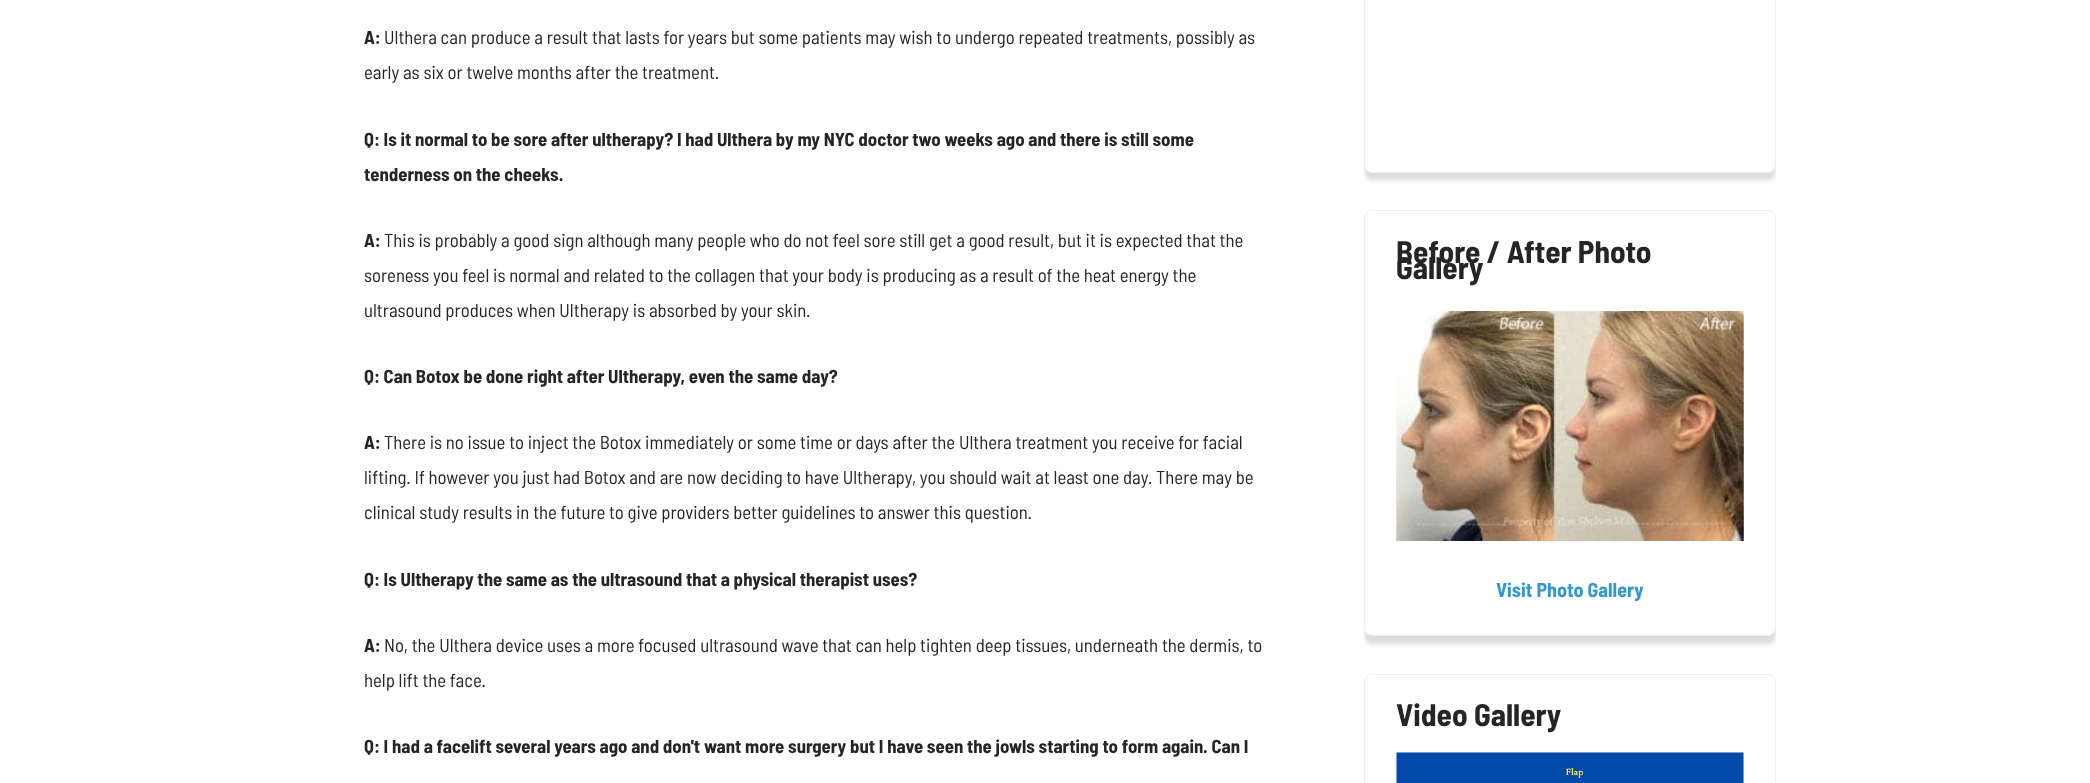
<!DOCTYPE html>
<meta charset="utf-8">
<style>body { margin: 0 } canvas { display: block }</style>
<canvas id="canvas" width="2090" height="783"></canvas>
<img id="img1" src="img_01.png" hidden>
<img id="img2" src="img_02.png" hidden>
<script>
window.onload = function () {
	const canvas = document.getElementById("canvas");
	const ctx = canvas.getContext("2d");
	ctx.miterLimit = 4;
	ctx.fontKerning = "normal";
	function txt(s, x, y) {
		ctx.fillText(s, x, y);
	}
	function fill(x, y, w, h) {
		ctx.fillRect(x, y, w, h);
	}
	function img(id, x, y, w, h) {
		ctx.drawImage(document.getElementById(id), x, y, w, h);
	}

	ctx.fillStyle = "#FFFFFF";
	fill(0, 0, 2090, 783);
	ctx.save();
	ctx.beginPath();
	ctx.rect(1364, 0, 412, 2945);
	ctx.clip();
	ctx.fillStyle = "#DCDCDC";
	ctx.filter = "blur(2.5px)";
	ctx.beginPath();
	ctx.roundRect(1364, -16, 412, 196, 8);
	ctx.fill();
	ctx.filter = "none";
	ctx.restore();
	ctx.beginPath();
	ctx.roundRect(1364.5, -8.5, 411, 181, 7.5);
	ctx.fill();
	ctx.strokeStyle = "#EEEFF5";
	ctx.stroke();
	ctx.save();
	ctx.beginPath();
	ctx.rect(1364, 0, 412, 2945);
	ctx.clip();
	ctx.fillStyle = "#DCDCDC";
	ctx.filter = "blur(2.5px)";
	ctx.beginPath();
	ctx.roundRect(1364, 218, 412, 426, 8);
	ctx.fill();
	ctx.filter = "none";
	ctx.restore();
	ctx.beginPath();
	ctx.roundRect(1364.5, 210.5, 411, 425, 7.5);
	ctx.fill();
	ctx.stroke();
	img("img1", 1396, 311, 348, 230);
	ctx.beginPath();
	ctx.roundRect(1364.5, 674.5, 411, 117, 7.5);
	ctx.stroke();
	img("img2", 1396, 752, 348, 31);
	ctx.font = "bold 18.75px Barlow Semi Condensed";
	ctx.fillStyle = "#252525";
	txt("A:", 364, 44);
	ctx.font = "18.75px Barlow Semi Condensed";
	txt("Ulthera can produce a result that lasts for years but some patients may wish to undergo repeated treatments, possibly as", 384, 44);
	txt("early as six or twelve months after the treatment.", 364, 79);
	ctx.font = "bold 18.75px Barlow Semi Condensed";
	txt("Q: Is it normal to be sore after ultherapy? I had Ulthera by my NYC doctor two weeks ago and there is still some", 364, 146);
	txt("tenderness on the cheeks.", 364, 181);
	txt("A:", 364, 247);
	ctx.font = "18.75px Barlow Semi Condensed";
	txt("This is probably a good sign although many people who do not feel sore still get a good result, but it is expected that the", 384, 247);
	txt("soreness you feel is normal and related to the collagen that your body is producing as a result of the heat energy the", 364, 282);
	txt("ultrasound produces when Ultherapy is absorbed by your skin.", 364, 317);
	ctx.font = "bold 18.75px Barlow Semi Condensed";
	txt("Q: Can Botox be done right after Ultherapy, even the same day?", 364, 383);
	txt("A:", 364, 449);
	ctx.font = "18.75px Barlow Semi Condensed";
	txt("There is no issue to inject the Botox immediately or some time or days after the Ulthera treatment you receive for facial", 384, 449);
	txt("lifting. If however you just had Botox and are now deciding to have Ultherapy, you should wait at least one day. There may be", 364, 484);
	txt("clinical study results in the future to give providers better guidelines to answer this question.", 364, 519);
	ctx.font = "bold 18.75px Barlow Semi Condensed";
	txt("Q: Is Ultherapy the same as the ultrasound that a physical therapist uses?", 364, 586);
	txt("A:", 364, 652);
	ctx.font = "18.75px Barlow Semi Condensed";
	txt("No, the Ulthera device uses a more focused ultrasound wave that can help tighten deep tissues, underneath the dermis, to", 384, 652);
	txt("help lift the face.", 364, 687);
	ctx.font = "bold 18.75px Barlow Semi Condensed";
	txt("Q: I had a facelift several years ago and don't want more surgery but I have seen the jowls starting to form again. Can I", 364, 753);
	ctx.font = "bold 31.25px Barlow Semi Condensed";
	txt("Before / After Photo", 1396, 263);
	txt("Gallery", 1396, 279);
	ctx.font = "bold 20px Barlow Semi Condensed";
	ctx.fillStyle = "#3399CC";
	txt("Visit Photo Gallery", 1496, 597);
	ctx.font = "bold 31.25px Barlow Semi Condensed";
	ctx.fillStyle = "#252525";
	txt("Video Gallery", 1396, 726);
};
</script>
